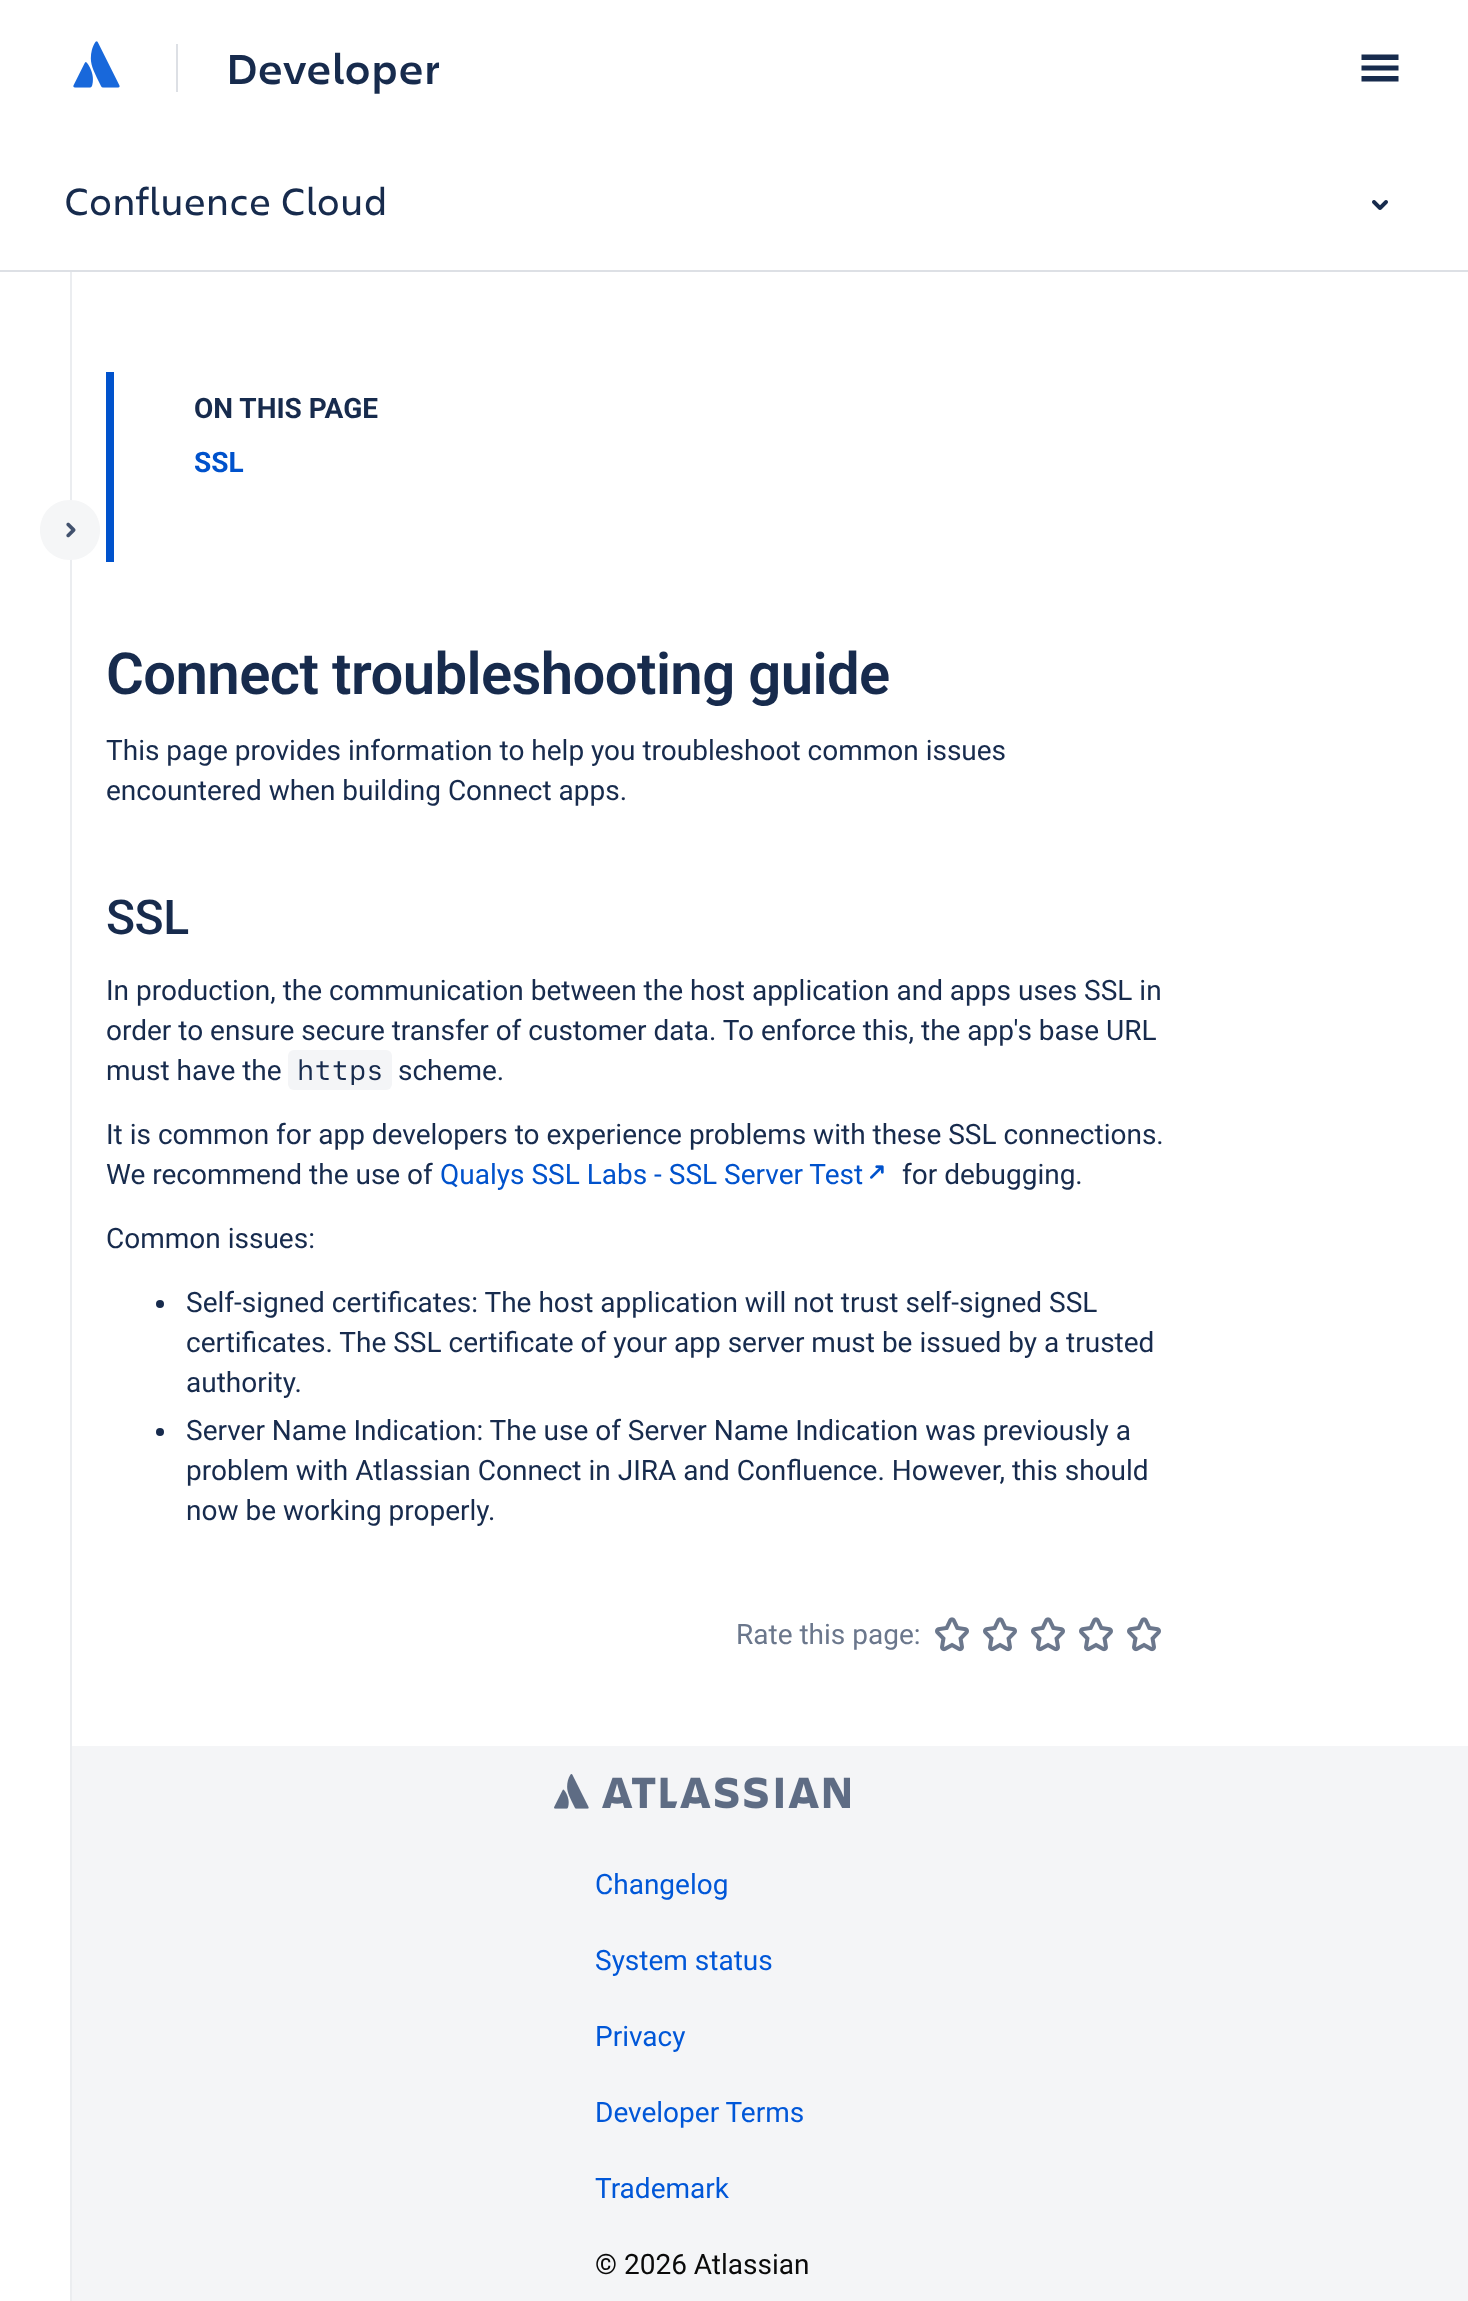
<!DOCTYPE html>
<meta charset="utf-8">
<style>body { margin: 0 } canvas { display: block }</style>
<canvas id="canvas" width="1468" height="2301"></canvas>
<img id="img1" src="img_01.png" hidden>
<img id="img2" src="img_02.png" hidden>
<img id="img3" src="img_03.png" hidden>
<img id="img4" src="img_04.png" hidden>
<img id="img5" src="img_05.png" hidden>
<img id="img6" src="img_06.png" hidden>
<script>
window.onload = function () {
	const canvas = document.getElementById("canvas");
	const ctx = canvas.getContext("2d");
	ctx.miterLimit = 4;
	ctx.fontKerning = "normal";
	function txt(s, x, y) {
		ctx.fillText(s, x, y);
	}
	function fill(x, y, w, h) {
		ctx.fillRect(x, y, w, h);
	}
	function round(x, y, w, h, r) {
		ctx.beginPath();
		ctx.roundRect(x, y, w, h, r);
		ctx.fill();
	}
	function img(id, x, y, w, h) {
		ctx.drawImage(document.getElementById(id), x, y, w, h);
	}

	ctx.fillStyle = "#FFFFFF";
	fill(0, 0, 1468, 2301);
	img("img1", 73, 41, 47, 47);
	ctx.fillStyle = "#DDE0E5";
	fill(176, 44, 2, 48);
	ctx.fillStyle = "#172B4D";
	ctx.beginPath();
	ctx.moveTo(1361.5, 76);
	ctx.lineTo(1398.5, 76);
	ctx.lineTo(1398.5, 81.5);
	ctx.lineTo(1361.5, 81.5);
	ctx.closePath();
	ctx.moveTo(1361.5, 54.5);
	ctx.lineTo(1398.5, 54.5);
	ctx.lineTo(1398.5, 60);
	ctx.lineTo(1361.5, 60);
	ctx.closePath();
	ctx.moveTo(1361.5, 65.5);
	ctx.lineTo(1398.5, 65.5);
	ctx.lineTo(1398.5, 70.5);
	ctx.lineTo(1361.5, 70.5);
	ctx.closePath();
	ctx.fill("evenodd");
	ctx.fillStyle = "#DDE0E5";
	fill(0, 270, 1468, 2);
	img("img2", 1372, 200, 16, 10);
	ctx.fillStyle = "#EBEDF0";
	fill(70, 272, 2, 2029);
	ctx.fillStyle = "#0052CC";
	fill(106, 372, 8, 190);
	ctx.fillStyle = "#F4F5F7";
	round(288, 1050, 104, 40, 6);
	img("img3", 870, 1165, 14, 14);
	ctx.fillStyle = "#172B4D";
	ctx.beginPath();
	ctx.arc(160, 1304, 4, 0, Math.PI * 2);
	ctx.fill();
	ctx.beginPath();
	ctx.arc(160, 1432, 4, 0, Math.PI * 2);
	ctx.fill();
	img("img4", 935, 1617, 34, 35);
	img("img4", 983, 1617, 34, 35);
	img("img4", 1031, 1617, 34, 35);
	img("img4", 1079, 1617, 34, 35);
	img("img4", 1127, 1617, 34, 35);
	ctx.fillStyle = "#F5F6F7";
	ctx.beginPath();
	ctx.moveTo(70, 560);
	ctx.bezierCurveTo(53, 560, 40, 547, 40, 530);
	ctx.bezierCurveTo(40, 513, 53, 500, 70, 500);
	ctx.bezierCurveTo(87, 500, 100, 513, 100, 530);
	ctx.bezierCurveTo(100, 547, 87, 560, 70, 560);
	ctx.closePath();
	ctx.fill();
	img("img5", 66, 522, 10, 16);
	ctx.fillStyle = "#F4F5F7";
	fill(72, 1746, 1396, 555);
	img("img6", 554, 1774, 296, 35);
	ctx.font = "600 44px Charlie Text";
	ctx.fillStyle = "#172B4D";
	txt("Developer", 226, 84);
	ctx.letterSpacing = "-0.4px";
	ctx.font = "40px Charlie Text";
	txt("Confluence Cloud", 64, 215);
	ctx.letterSpacing = "0px";
	ctx.font = "bold 28px Roboto";
	txt("ON THIS PAGE", 194, 418);
	ctx.fillStyle = "#0052CC";
	txt("SSL", 194, 472);
	ctx.letterSpacing = "-0.6px";
	ctx.font = "600 58px Roboto";
	ctx.fillStyle = "#172B4D";
	txt("Connect troubleshooting guide", 106, 694);
	ctx.letterSpacing = "0px";
	ctx.font = "28px Roboto";
	txt("This page provides information to help you troubleshoot common issues", 106, 760);
	txt("encountered when building Connect apps.", 106, 800);
	ctx.letterSpacing = "-0.5px";
	ctx.font = "500 48px Roboto";
	txt("SSL", 106, 934);
	ctx.letterSpacing = "0px";
	ctx.font = "28px Roboto";
	txt("In production, the communication between the host application and apps uses SSL in", 106, 1000);
	txt("order to ensure secure transfer of customer data. To enforce this, the app's base URL", 106, 1040);
	txt("must have the", 106, 1080);
	ctx.font = "28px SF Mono";
	txt("https", 297, 1080);
	ctx.font = "28px Roboto";
	txt("scheme.", 398, 1080);
	txt("It is common for app developers to experience problems with these SSL connections.", 106, 1144);
	txt("We recommend the use of", 106, 1184);
	ctx.fillStyle = "#0052CC";
	txt("Qualys SSL Labs - SSL Server Test", 440, 1184);
	ctx.fillStyle = "#172B4D";
	txt("for debugging.", 902, 1184);
	txt("Common issues:", 106, 1248);
	txt("Self-signed certificates: The host application will not trust self-signed SSL", 186, 1312);
	txt("certificates. The SSL certificate of your app server must be issued by a trusted", 186, 1352);
	txt("authority.", 186, 1392);
	txt("Server Name Indication: The use of Server Name Indication was previously a", 186, 1440);
	txt("problem with Atlassian Connect in JIRA and Confluence. However, this should", 186, 1480);
	txt("now be working properly.", 186, 1520);
	ctx.fillStyle = "#6B778C";
	txt("Rate this page:", 736, 1644);
	ctx.fillStyle = "#0057D8";
	txt("Changelog", 595, 1894);
	txt("System status", 595, 1970);
	txt("Privacy", 595, 2046);
	txt("Developer Terms", 595, 2122);
	txt("Trademark", 595, 2198);
	ctx.fillStyle = "#0A0A0A";
	txt("© 2026 Atlassian", 595, 2274);
};
</script>
